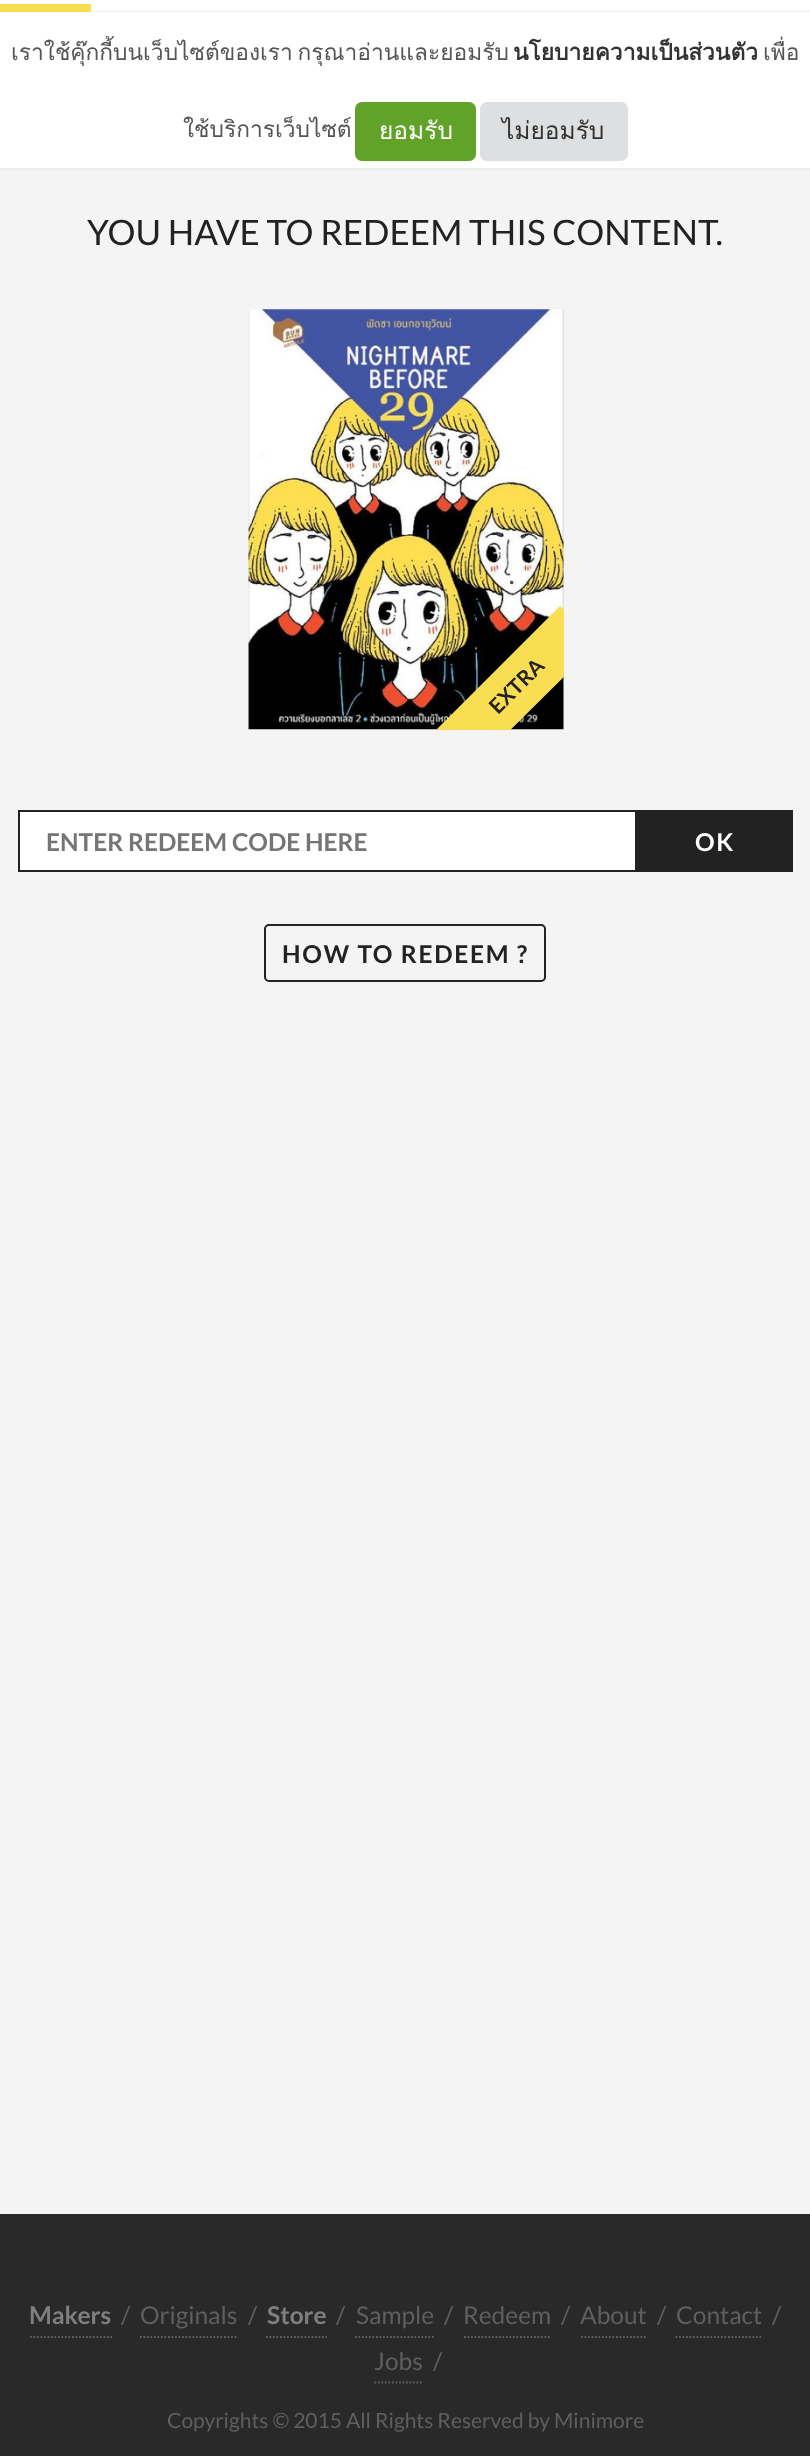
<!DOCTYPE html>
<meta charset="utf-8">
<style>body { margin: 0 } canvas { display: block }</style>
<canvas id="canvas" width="810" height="2456"></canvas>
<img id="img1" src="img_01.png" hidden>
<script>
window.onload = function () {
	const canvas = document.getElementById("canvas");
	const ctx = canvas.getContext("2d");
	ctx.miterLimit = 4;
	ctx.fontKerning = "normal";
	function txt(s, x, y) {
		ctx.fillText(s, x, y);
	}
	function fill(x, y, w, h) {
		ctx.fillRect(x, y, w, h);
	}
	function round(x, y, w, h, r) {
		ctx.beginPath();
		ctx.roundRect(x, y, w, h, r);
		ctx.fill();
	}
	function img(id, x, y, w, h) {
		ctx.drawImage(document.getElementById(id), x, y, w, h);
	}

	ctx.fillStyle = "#FFFFFF";
	fill(0, 0, 810, 2456);
	ctx.fillStyle = "#EEEEEE";
	fill(91, 11, 719, 1);
	ctx.fillStyle = "#F9DD53";
	fill(0, 4, 91, 8);
	ctx.fillStyle = "#EEEEEE";
	fill(0, 168, 810, 2);
	ctx.fillStyle = "#61A229";
	round(355, 102, 121, 59, 7);
	ctx.fillStyle = "#DEDFE0";
	round(480, 102, 148, 59, 7);
	ctx.fillStyle = "#F4F4F4";
	fill(0, 170, 810, 2044);
	img("img1", 248, 309, 316, 421);
	ctx.save();
	ctx.beginPath();
	ctx.rect(424, 590, 140, 140);
	ctx.clip();
	ctx.fillStyle = "#F9DD53";
	ctx.beginPath();
	ctx.moveTo(437, 729);
	ctx.lineTo(560, 606);
	ctx.lineTo(598, 643);
	ctx.lineTo(474, 766);
	ctx.closePath();
	ctx.fill();
	ctx.restore();
	ctx.fillStyle = "#FFFFFF";
	ctx.beginPath();
	ctx.rect(19, 811, 617, 60);
	ctx.fill();
	ctx.strokeStyle = "#222222";
	ctx.lineWidth = 2;
	ctx.stroke();
	ctx.fillStyle = "#222222";
	fill(637, 810, 156, 62);
	ctx.beginPath();
	ctx.roundRect(265, 925, 280, 56, 4);
	ctx.stroke();
	ctx.fillStyle = "#292929";
	fill(0, 2214, 810, 242);
	ctx.beginPath();
	ctx.moveTo(30, 2337);
	ctx.lineTo(112, 2337);
	ctx.strokeStyle = "#5F5F5F";
	ctx.lineWidth = 1.8;
	ctx.setLineDash([1.75, 1.75]);
	ctx.stroke();
	ctx.beginPath();
	ctx.moveTo(140, 2337);
	ctx.lineTo(238, 2337);
	ctx.stroke();
	ctx.beginPath();
	ctx.moveTo(266, 2337);
	ctx.lineTo(327, 2337);
	ctx.stroke();
	ctx.beginPath();
	ctx.moveTo(355, 2337);
	ctx.lineTo(434, 2337);
	ctx.stroke();
	ctx.beginPath();
	ctx.moveTo(464, 2337);
	ctx.lineTo(551, 2337);
	ctx.stroke();
	ctx.beginPath();
	ctx.moveTo(581, 2337);
	ctx.lineTo(647.5, 2337);
	ctx.stroke();
	ctx.beginPath();
	ctx.moveTo(675.5, 2337);
	ctx.lineTo(763, 2337);
	ctx.stroke();
	ctx.beginPath();
	ctx.moveTo(374.5, 2382.5);
	ctx.lineTo(422, 2382.5);
	ctx.stroke();
	ctx.wordSpacing = "-3px";
	ctx.font = "22.75px Loma";
	ctx.fillStyle = "#555555";
	txt("เราใช้คุ๊กกี้บนเว็บไซต์ของเรา กรุณาอ่านและยอมรับ", 11, 60);
	ctx.wordSpacing = "0px";
	ctx.font = "bold 22.75px Loma";
	ctx.fillStyle = "#333333";
	txt("นโยบายความเป็นส่วนตัว", 513, 60);
	ctx.font = "22.75px Loma";
	ctx.fillStyle = "#555555";
	txt("เพื่อ", 763, 60);
	txt("ใช้บริการเว็บไซต์", 183, 137);
	ctx.font = "24.5px Loma";
	ctx.fillStyle = "#FFFFFF";
	txt("ยอมรับ", 379, 139);
	ctx.fillStyle = "#333333";
	txt("ไม่ยอมรับ", 502, 139);
	ctx.font = "35px Lato";
	ctx.fillStyle = "#222222";
	txt("YOU HAVE TO REDEEM THIS CONTENT.", 87, 245);
	ctx.font = "bold 21px Lato";
	ctx.save();
	ctx.translate(498, 715);
	ctx.rotate(-45 * Math.PI / 180);
	ctx.fillText("EXTRA", 0, 0);
	ctx.restore();
	ctx.font = "bold 24.5px Lato";
	ctx.fillStyle = "#757575";
	txt("ENTER REDEEM CODE HERE", 46, 851);
	ctx.letterSpacing = "1.75px";
	ctx.fillStyle = "#FFFFFF";
	txt("OK", 695, 851);
	ctx.fillStyle = "#222222";
	txt("HOW TO REDEEM ?", 282, 963);
	ctx.letterSpacing = "0px";
	ctx.fillStyle = "#7F7F7F";
	txt("Makers", 29, 2324);
	ctx.font = "24.5px Lato";
	ctx.fillStyle = "#5F5F5F";
	txt("/", 121, 2324);
	txt("Originals", 140, 2324);
	txt("/", 248, 2324);
	ctx.font = "bold 24.5px Lato";
	ctx.fillStyle = "#7F7F7F";
	txt("Store", 267, 2324);
	ctx.font = "24.5px Lato";
	ctx.fillStyle = "#5F5F5F";
	txt("/", 336, 2324);
	txt("Sample", 356, 2324);
	txt("/", 444, 2324);
	txt("Redeem", 463, 2324);
	txt("/", 561, 2324);
	txt("About", 580, 2324);
	txt("/", 657, 2324);
	txt("Contact", 676, 2324);
	txt("/", 772, 2324);
	txt("Jobs", 374, 2370);
	txt("/", 433, 2370);
	ctx.font = "21px Lato";
	txt("Copyrights © 2015 All Rights Reserved by Minimore", 167, 2428);
};
</script>
